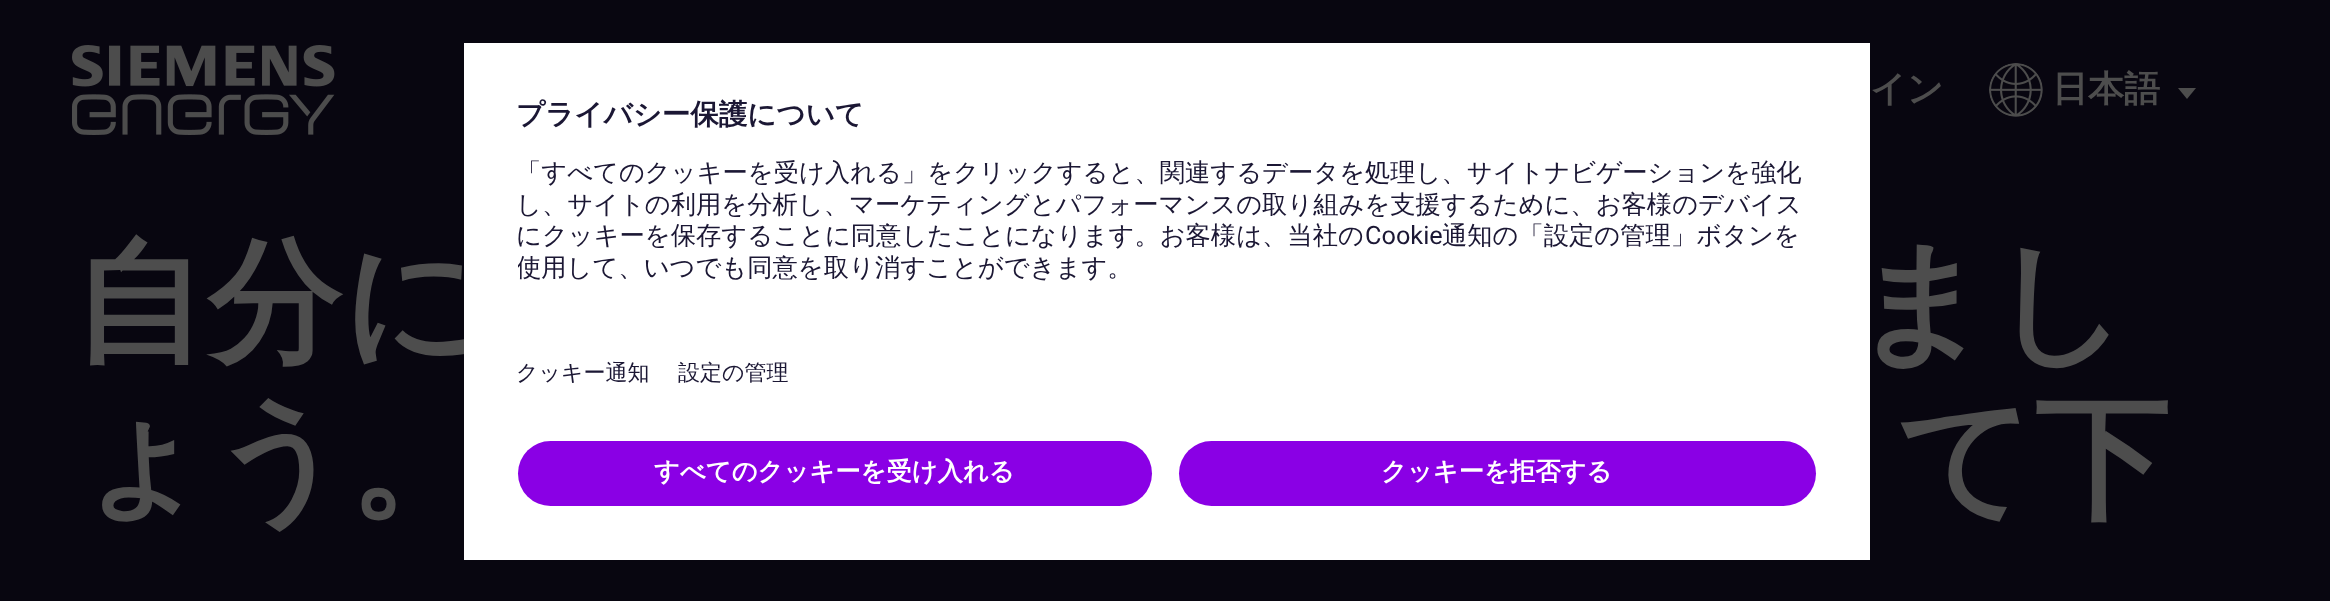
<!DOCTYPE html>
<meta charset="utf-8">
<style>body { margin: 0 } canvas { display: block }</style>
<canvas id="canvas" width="2330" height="601"></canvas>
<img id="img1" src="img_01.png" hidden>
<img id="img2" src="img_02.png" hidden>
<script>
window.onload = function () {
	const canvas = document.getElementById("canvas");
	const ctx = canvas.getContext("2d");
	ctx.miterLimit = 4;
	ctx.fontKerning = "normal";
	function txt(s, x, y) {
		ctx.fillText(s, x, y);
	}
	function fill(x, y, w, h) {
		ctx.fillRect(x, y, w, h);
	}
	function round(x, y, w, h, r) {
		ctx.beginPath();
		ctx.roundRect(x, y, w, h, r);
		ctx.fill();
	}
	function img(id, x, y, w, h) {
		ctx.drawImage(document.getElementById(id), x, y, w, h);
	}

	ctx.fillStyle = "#080610";
	fill(0, 0, 2330, 601);
	img("img1", 72, 45, 263, 90);
	img("img2", 1989, 63, 54, 54);
	ctx.fillStyle = "#4D4D4D";
	ctx.beginPath();
	ctx.moveTo(2178, 88);
	ctx.lineTo(2196, 88);
	ctx.lineTo(2187, 99);
	ctx.closePath();
	ctx.fill();
	ctx.font = "bold 36px WenQuanYi Zen Hei";
	txt("イン", 1870, 101);
	txt("日本語", 2052, 101);
	ctx.font = "bold 135px WenQuanYi Zen Hei";
	txt("自分に", 72, 349);
	txt("まし", 1852, 349);
	txt("ょう。", 72, 506);
	txt("て下", 1896, 506);
	ctx.fillStyle = "#FFFFFF";
	fill(464, 43, 1406, 517);
	ctx.font = "bold 28.5px WenQuanYi Zen Hei";
	ctx.fillStyle = "#1B1734";
	txt("プライバシー保護について", 516, 124);
	ctx.font = "500 25.3px WenQuanYi Zen Hei";
	txt("「すべてのクッキーを受け入れる」をクリックすると、関連するデータを処理し、サイトナビゲーションを強化", 516, 181);
	txt("し、サイトの利用を分析し、マーケティングとパフォーマンスの取り組みを支援するために、お客様のデバイス", 516, 213);
	txt("にクッキーを保存することに同意したことになります。お客様は、当社の", 516, 244);
	ctx.font = "25.3px Roboto";
	txt("Cookie", 1365, 244);
	ctx.font = "500 25.3px WenQuanYi Zen Hei";
	txt("通知の「設定の管理」ボタンを", 1442, 244);
	ctx.save();
	ctx.beginPath();
	ctx.rect(518, 149, 1298, 146);
	ctx.clip();
	txt("使用して、いつでも同意を取り消すことができます。", 516, 276);
	ctx.restore();
	ctx.font = "500 22px WenQuanYi Zen Hei";
	txt("クッキー通知", 516, 380);
	txt("設定の管理", 678, 380);
	ctx.fillStyle = "#8A00E5";
	round(518, 441, 634, 65, 32.5);
	ctx.font = "bold 25.3px WenQuanYi Zen Hei";
	ctx.fillStyle = "#FFFFFF";
	txt("すべてのクッキーを受け入れる", 654, 480);
	ctx.fillStyle = "#8A00E5";
	round(1179, 441, 637, 65, 32.5);
	ctx.fillStyle = "#FFFFFF";
	txt("クッキーを拒否する", 1381, 480);
};
</script>
